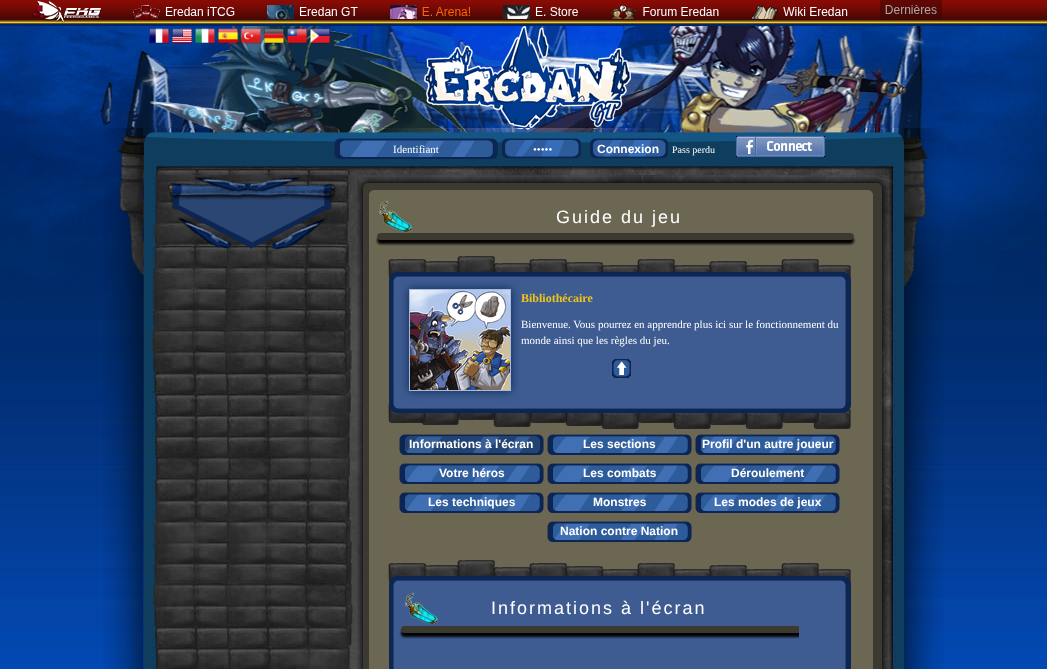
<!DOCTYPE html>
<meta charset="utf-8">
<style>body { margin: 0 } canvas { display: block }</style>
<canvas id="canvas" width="1047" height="669"></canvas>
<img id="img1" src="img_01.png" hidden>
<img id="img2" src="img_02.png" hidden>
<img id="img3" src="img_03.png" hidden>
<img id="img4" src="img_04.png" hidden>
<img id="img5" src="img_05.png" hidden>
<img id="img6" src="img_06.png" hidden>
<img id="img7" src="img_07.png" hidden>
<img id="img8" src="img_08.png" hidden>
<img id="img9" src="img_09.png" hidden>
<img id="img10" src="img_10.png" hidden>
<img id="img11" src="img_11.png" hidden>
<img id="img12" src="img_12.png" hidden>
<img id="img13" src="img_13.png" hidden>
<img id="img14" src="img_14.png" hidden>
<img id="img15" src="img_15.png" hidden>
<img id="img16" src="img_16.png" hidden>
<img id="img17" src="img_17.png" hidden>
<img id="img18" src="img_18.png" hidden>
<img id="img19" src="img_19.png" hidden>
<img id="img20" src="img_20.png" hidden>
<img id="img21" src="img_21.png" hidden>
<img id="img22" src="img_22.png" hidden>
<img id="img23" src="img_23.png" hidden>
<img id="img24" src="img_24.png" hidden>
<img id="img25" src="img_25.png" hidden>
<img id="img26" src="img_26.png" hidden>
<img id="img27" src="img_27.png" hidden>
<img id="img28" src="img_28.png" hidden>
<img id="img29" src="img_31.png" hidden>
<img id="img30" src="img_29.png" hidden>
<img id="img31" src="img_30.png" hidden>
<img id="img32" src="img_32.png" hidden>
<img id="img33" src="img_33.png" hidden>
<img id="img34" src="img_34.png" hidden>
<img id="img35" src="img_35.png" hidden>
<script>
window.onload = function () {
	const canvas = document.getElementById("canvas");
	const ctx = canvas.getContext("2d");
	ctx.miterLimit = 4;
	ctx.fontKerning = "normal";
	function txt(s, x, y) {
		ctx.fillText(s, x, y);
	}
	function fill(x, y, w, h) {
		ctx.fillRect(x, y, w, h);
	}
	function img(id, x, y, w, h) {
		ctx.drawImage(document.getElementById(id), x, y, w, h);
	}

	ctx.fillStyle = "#FFFFFF";
	fill(0, 0, 1047, 669);
	img("img1", 0, 24, 1047, 645);
	img("img2", 0, 0, 1047, 24);
	img("img3", 0, 26, 1047, 274);
	img("img4", 1, 26, 925, 102);
	img("img5", 149, 28, 20, 16);
	img("img6", 172, 28, 20, 16);
	img("img7", 195, 28, 20, 16);
	img("img8", 218, 28, 20, 16);
	img("img9", 241, 28, 20, 16);
	img("img10", 264, 28, 20, 16);
	img("img11", 287, 28, 20, 16);
	img("img12", 310, 28, 20, 16);
	img("img13", 424, 26, 207, 102);
	img("img14", 103, 128, 841, 541);
	ctx.fillStyle = "#0F3D5D";
	fill(144, 143, 760, 526);
	img("img15", 144, 128, 760, 15);
	img("img16", 334, 138, 164, 21);
	img("img17", 502, 138, 79, 21);
	img("img18", 590, 138, 78, 21);
	img("img19", 736, 136, 89, 21);
	img("img20", 152, 175, 744, 494);
	img("img21", 152, 164, 744, 11);
	img("img22", 167, 176, 170, 29);
	img("img23", 171, 205, 161, 45);
	img("img24", 357, 177, 531, 23);
	img("img25", 357, 200, 532, 469);
	img("img26", 375, 200, 481, 46);
	img("img27", 389, 281, 462, 122);
	img("img28", 388, 254, 463, 27);
	img("img29", 388, 403, 463, 29);
	ctx.fillStyle = "#0D2552";
	ctx.filter = "blur(5px)";
	ctx.beginPath();
	ctx.rect(409, 289, 102, 102);
	ctx.fill();
	ctx.filter = "none";
	ctx.strokeStyle = "#A7BBDF";
	ctx.strokeRect(409.5, 289.5, 101, 101);
	img("img30", 410, 290, 100, 100);
	img("img31", 612, 359, 19, 19);
	img("img32", 399, 434, 145, 21);
	img("img33", 547, 434, 145, 21);
	img("img33", 695, 434, 145, 21);
	img("img33", 399, 463, 145, 21);
	img("img33", 547, 463, 145, 21);
	img("img33", 695, 463, 145, 21);
	img("img33", 399, 492, 145, 21);
	img("img33", 547, 492, 145, 21);
	img("img33", 695, 492, 145, 21);
	img("img33", 547, 521, 145, 21);
	img("img34", 389, 585, 462, 84);
	img("img28", 388, 558, 463, 27);
	img("img35", 399, 592, 400, 47);
	ctx.font = "11px Liberation Serif";
	ctx.fillStyle = "#FFFFFF";
	txt("Identifiant", 393, 153);
	txt("•••••", 533, 153);
	ctx.font = "bold 12px Liberation Sans";
	txt("Connexion", 597, 153);
	ctx.font = "10px Liberation Serif";
	txt("Pass perdu", 672, 153);
	ctx.letterSpacing = "2px";
	ctx.font = "18px Liberation Sans";
	txt("Guide du jeu", 556, 223);
	ctx.letterSpacing = "0px";
	ctx.font = "bold 12px Liberation Serif";
	ctx.fillStyle = "#EFC519";
	txt("Bibliothécaire", 521, 302);
	ctx.font = "11px Liberation Serif";
	ctx.fillStyle = "#FFFFFF";
	txt("Bienvenue. Vous pourrez en apprendre plus ici sur le fonctionnement du", 521, 328);
	txt("monde ainsi que les règles du jeu.", 521, 344);
	ctx.font = "bold 12px Liberation Sans";
	txt("Informations à l'écran", 409, 448);
	txt("Les sections", 583, 448);
	txt("Profil d'un autre joueur", 702, 448);
	txt("Votre héros", 439, 477);
	txt("Les combats", 583, 477);
	txt("Déroulement", 731, 477);
	txt("Les techniques", 428, 506);
	txt("Monstres", 593, 506);
	txt("Les modes de jeux", 714, 506);
	txt("Nation contre Nation", 560, 535);
	ctx.letterSpacing = "2px";
	ctx.font = "18px Liberation Sans";
	txt("Informations à l'écran", 491, 614);
};
</script>
